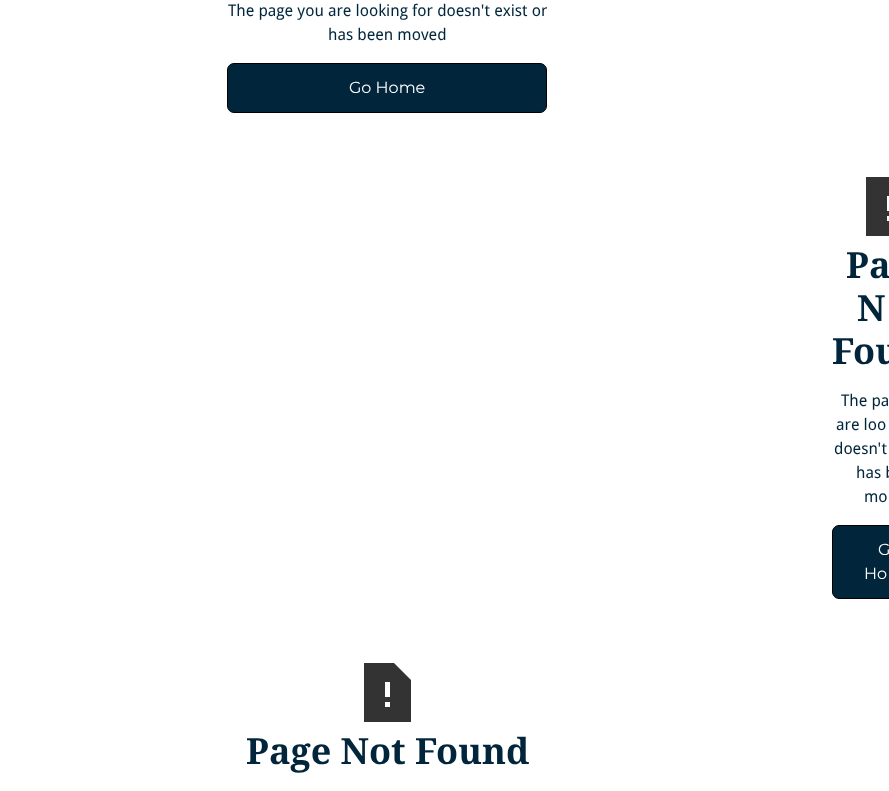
<!DOCTYPE html>
<meta charset="utf-8">
<style>body { margin: 0 } canvas { display: block }</style>
<canvas id="canvas" width="889" height="791"></canvas>
<script>
window.onload = function () {
	const canvas = document.getElementById("canvas");
	const ctx = canvas.getContext("2d");
	ctx.miterLimit = 4;
	ctx.fontKerning = "normal";
	function txt(s, x, y) {
		ctx.fillText(s, x, y);
	}
	function fill(x, y, w, h) {
		ctx.fillRect(x, y, w, h);
	}

	ctx.fillStyle = "#FFFFFF";
	fill(0, 0, 889, 791);
	ctx.fillStyle = "#01253B";
	ctx.beginPath();
	ctx.roundRect(227.5, 63.5, 319, 49, 6.5);
	ctx.fill();
	ctx.strokeStyle = "#000000";
	ctx.stroke();
	ctx.fillStyle = "#333333";
	ctx.beginPath();
	ctx.moveTo(364, 663);
	ctx.lineTo(394, 663);
	ctx.lineTo(411, 680);
	ctx.lineTo(411, 722);
	ctx.lineTo(364, 722);
	ctx.closePath();
	ctx.moveTo(385, 682);
	ctx.lineTo(390, 682);
	ctx.lineTo(390, 697);
	ctx.lineTo(385, 697);
	ctx.closePath();
	ctx.moveTo(385, 702);
	ctx.lineTo(390, 702);
	ctx.lineTo(390, 707);
	ctx.lineTo(385, 707);
	ctx.closePath();
	ctx.fill("evenodd");
	ctx.beginPath();
	ctx.moveTo(866, 177);
	ctx.lineTo(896, 177);
	ctx.lineTo(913, 194);
	ctx.lineTo(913, 236);
	ctx.lineTo(866, 236);
	ctx.closePath();
	ctx.moveTo(887, 196);
	ctx.lineTo(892, 196);
	ctx.lineTo(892, 211);
	ctx.lineTo(887, 211);
	ctx.closePath();
	ctx.moveTo(887, 216);
	ctx.lineTo(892, 216);
	ctx.lineTo(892, 221);
	ctx.lineTo(887, 221);
	ctx.closePath();
	ctx.fill("evenodd");
	ctx.fillStyle = "#01253B";
	ctx.beginPath();
	ctx.roundRect(832.5, 525.5, 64, 73, 6.5);
	ctx.fill();
	ctx.stroke();
	ctx.font = "16px Droid Sans";
	txt("The page you are looking for doesn't exist or", 228, 16);
	txt("has been moved", 328, 40);
	ctx.font = "16px Montserrat";
	ctx.fillStyle = "#FFFFFF";
	txt("Go Home", 349, 93);
	ctx.font = "bold 36px Droid Serif";
	ctx.fillStyle = "#01253B";
	txt("Page Not Found", 246, 764);
	txt("Pa", 846, 278);
	txt("N", 857, 321);
	txt("Fou", 832, 364);
	ctx.font = "16px Droid Sans";
	txt("The pa", 841, 406);
	txt("are loo", 836, 430);
	txt("doesn't", 834, 454);
	txt("has b", 856, 478);
	txt("mo", 864, 502);
	ctx.font = "16px Montserrat";
	ctx.fillStyle = "#FFFFFF";
	txt("G", 878, 555);
	txt("Ho", 864, 579);
};
</script>
